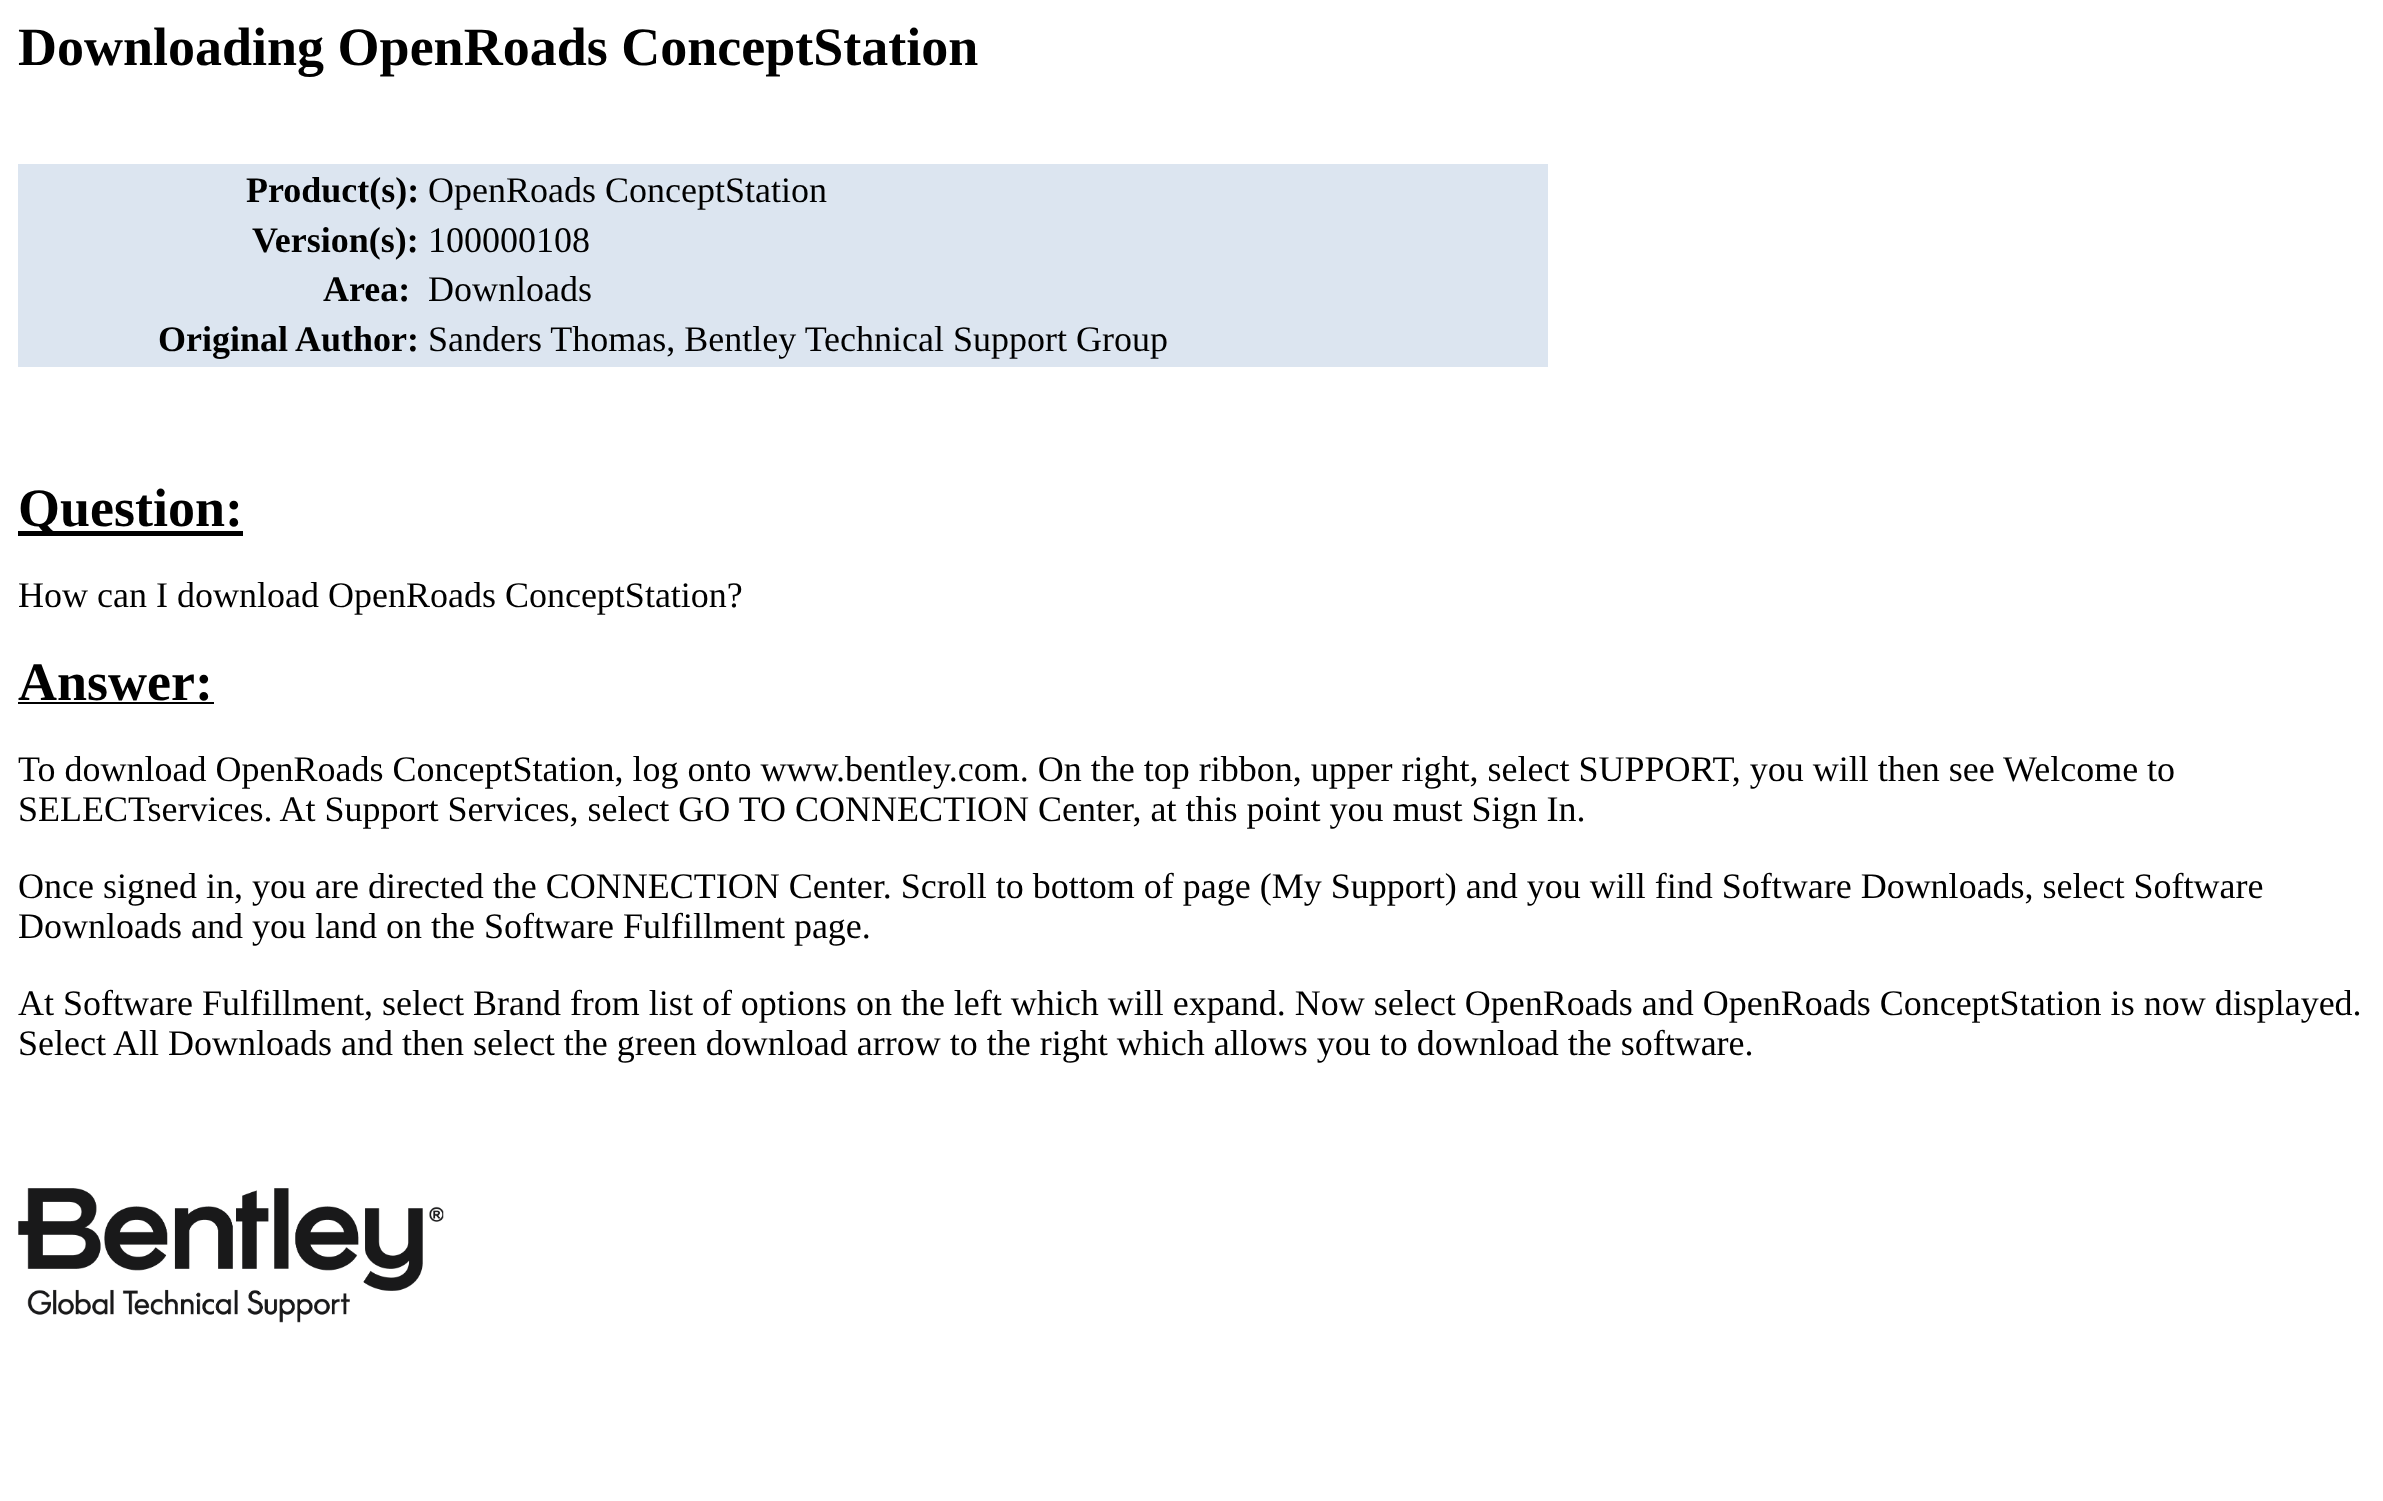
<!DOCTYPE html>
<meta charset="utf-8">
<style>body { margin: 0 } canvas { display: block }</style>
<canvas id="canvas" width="2383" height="1501"></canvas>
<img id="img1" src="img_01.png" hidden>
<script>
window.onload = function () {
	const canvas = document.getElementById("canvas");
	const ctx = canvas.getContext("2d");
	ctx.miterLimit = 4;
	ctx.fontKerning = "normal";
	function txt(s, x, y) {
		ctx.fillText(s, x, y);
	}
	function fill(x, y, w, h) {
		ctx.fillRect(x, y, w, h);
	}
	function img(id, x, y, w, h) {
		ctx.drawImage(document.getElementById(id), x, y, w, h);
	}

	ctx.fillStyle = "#FFFFFF";
	fill(0, 0, 2383, 1501);
	ctx.fillStyle = "#DCE5F0";
	fill(18, 164, 1530, 203);
	ctx.fillStyle = "#000000";
	fill(18, 531, 225, 5);
	fill(18, 702, 196, 2);
	img("img1", 18, 1188, 426, 135);
	ctx.font = "bold 54px Liberation Serif";
	txt("Downloading OpenRoads ConceptStation", 18, 65);
	ctx.font = "bold 36px Liberation Serif";
	txt("Product(s):", 246, 202);
	ctx.font = "36px Liberation Serif";
	txt("OpenRoads ConceptStation", 428, 202);
	ctx.font = "bold 36px Liberation Serif";
	txt("Version(s):", 252, 252);
	ctx.font = "36px Liberation Serif";
	txt("100000108", 428, 252);
	ctx.font = "bold 36px Liberation Serif";
	txt("Area:", 323, 301);
	ctx.font = "36px Liberation Serif";
	txt("Downloads", 428, 301);
	ctx.font = "bold 36px Liberation Serif";
	txt("Original Author:", 158, 351);
	ctx.font = "36px Liberation Serif";
	txt("Sanders Thomas, Bentley Technical Support Group", 428, 351);
	ctx.font = "bold 54px Liberation Serif";
	txt("Question:", 18, 526);
	ctx.font = "36px Liberation Serif";
	txt("How can I download OpenRoads ConceptStation?", 18, 607);
	ctx.font = "bold 54px Liberation Serif";
	txt("Answer:", 18, 700);
	ctx.font = "36px Liberation Serif";
	txt("To download OpenRoads ConceptStation, log onto www.bentley.com. On the top ribbon, upper right, select SUPPORT, you will then see Welcome to", 18, 781);
	txt("SELECTservices. At Support Services, select GO TO CONNECTION Center, at this point you must Sign In.", 18, 821);
	txt("Once signed in, you are directed the CONNECTION Center. Scroll to bottom of page (My Support) and you will find Software Downloads, select Software", 18, 898);
	txt("Downloads and you land on the Software Fulfillment page.", 18, 938);
	txt("At Software Fulfillment, select Brand from list of options on the left which will expand. Now select OpenRoads and OpenRoads ConceptStation is now displayed.", 18, 1015);
	txt("Select All Downloads and then select the green download arrow to the right which allows you to download the software.", 18, 1055);
};
</script>
